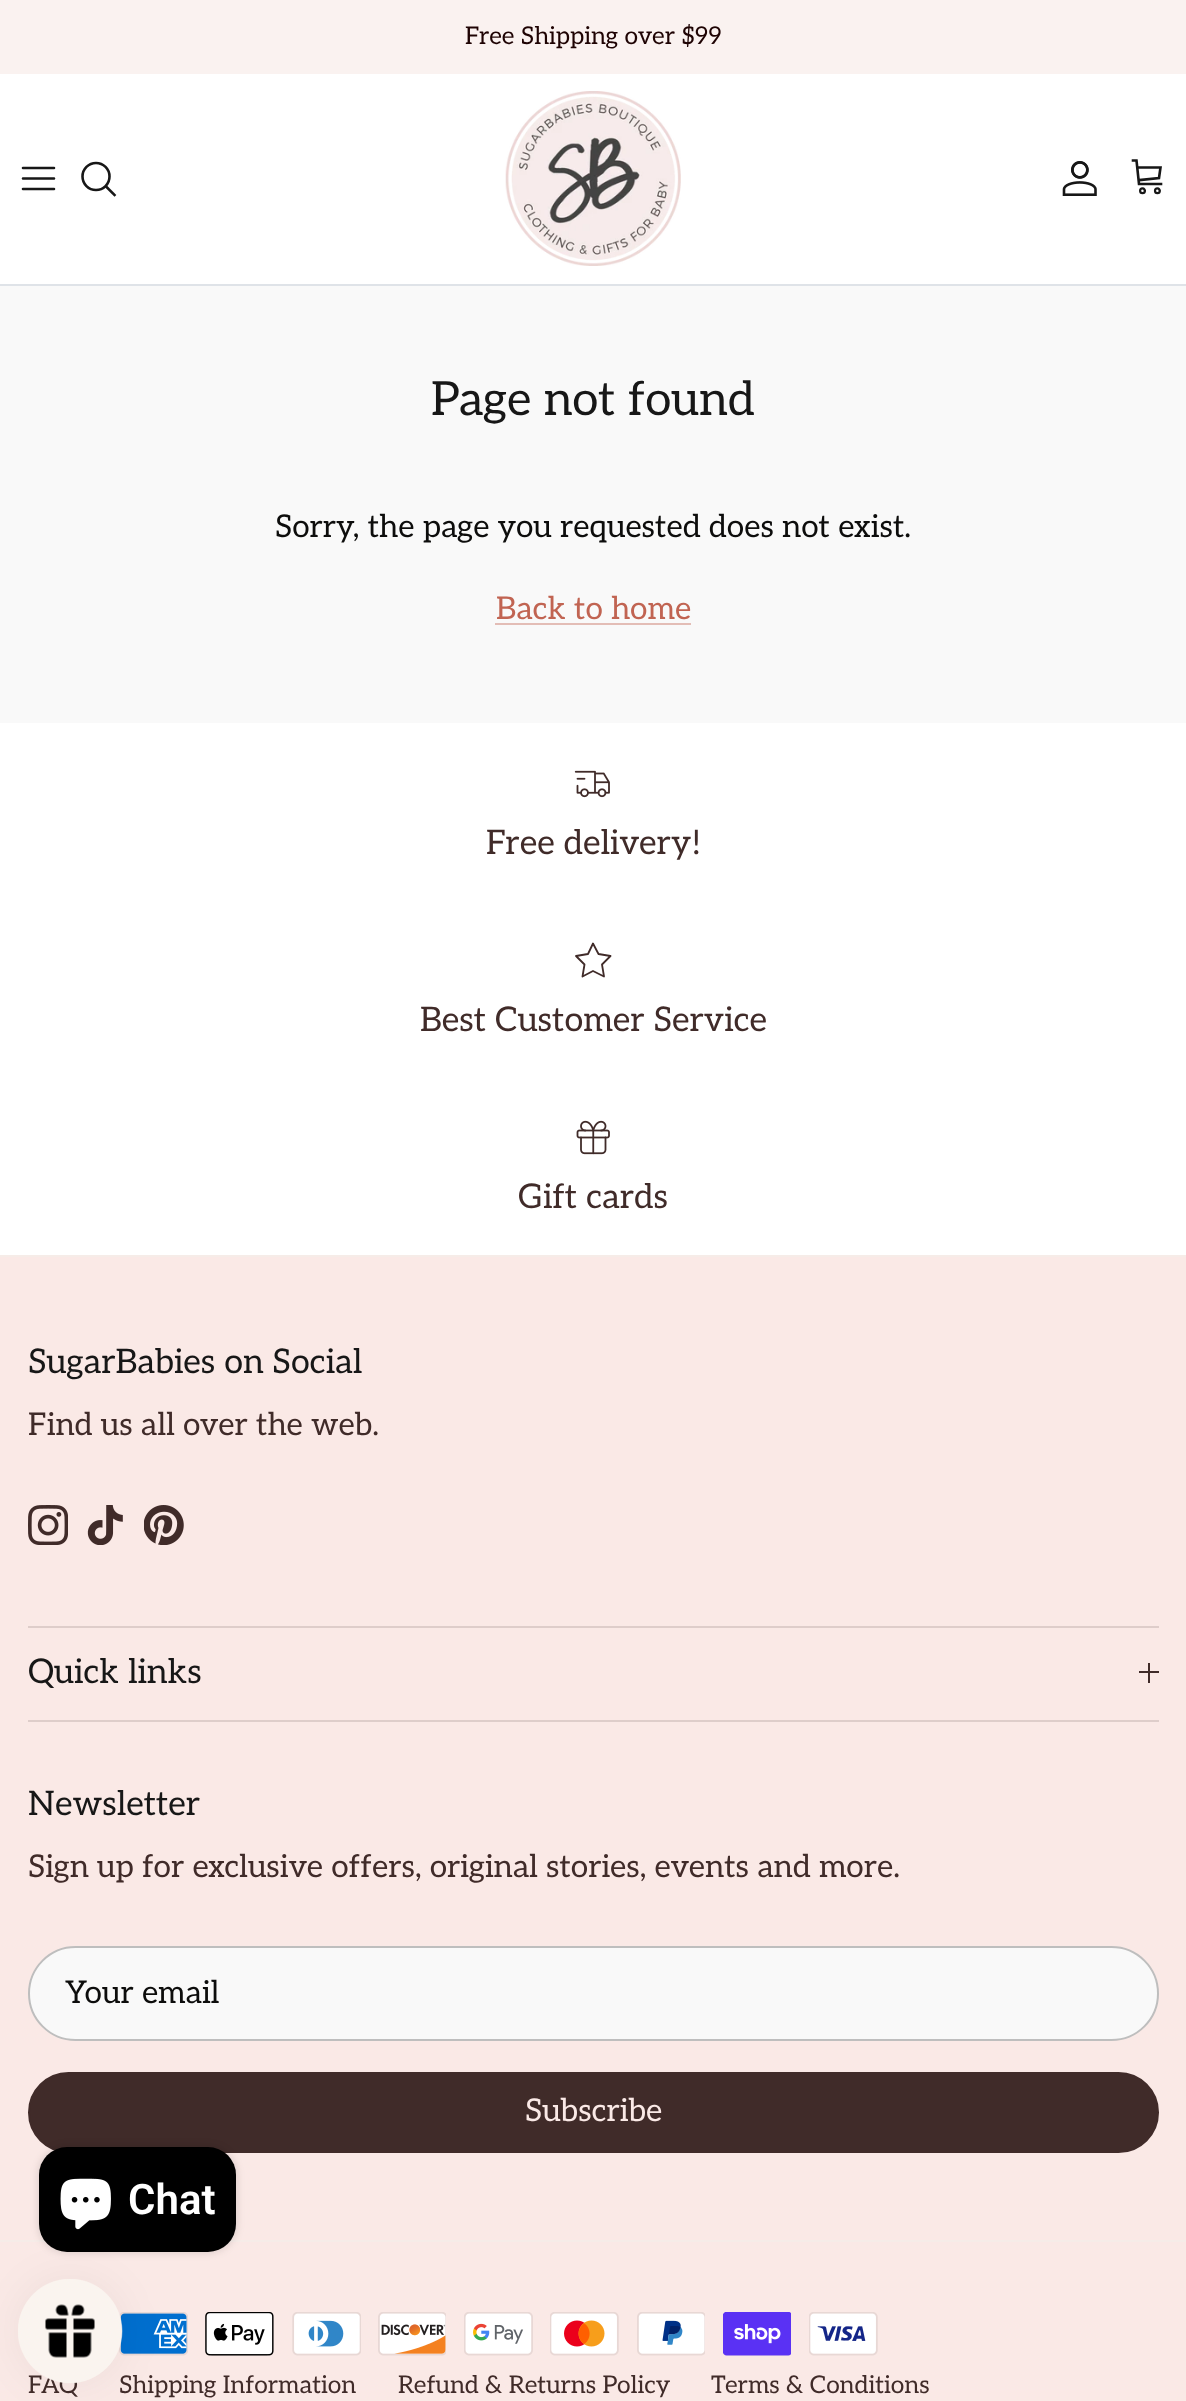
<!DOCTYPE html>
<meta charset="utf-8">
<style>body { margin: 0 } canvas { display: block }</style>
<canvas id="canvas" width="1186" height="2401"></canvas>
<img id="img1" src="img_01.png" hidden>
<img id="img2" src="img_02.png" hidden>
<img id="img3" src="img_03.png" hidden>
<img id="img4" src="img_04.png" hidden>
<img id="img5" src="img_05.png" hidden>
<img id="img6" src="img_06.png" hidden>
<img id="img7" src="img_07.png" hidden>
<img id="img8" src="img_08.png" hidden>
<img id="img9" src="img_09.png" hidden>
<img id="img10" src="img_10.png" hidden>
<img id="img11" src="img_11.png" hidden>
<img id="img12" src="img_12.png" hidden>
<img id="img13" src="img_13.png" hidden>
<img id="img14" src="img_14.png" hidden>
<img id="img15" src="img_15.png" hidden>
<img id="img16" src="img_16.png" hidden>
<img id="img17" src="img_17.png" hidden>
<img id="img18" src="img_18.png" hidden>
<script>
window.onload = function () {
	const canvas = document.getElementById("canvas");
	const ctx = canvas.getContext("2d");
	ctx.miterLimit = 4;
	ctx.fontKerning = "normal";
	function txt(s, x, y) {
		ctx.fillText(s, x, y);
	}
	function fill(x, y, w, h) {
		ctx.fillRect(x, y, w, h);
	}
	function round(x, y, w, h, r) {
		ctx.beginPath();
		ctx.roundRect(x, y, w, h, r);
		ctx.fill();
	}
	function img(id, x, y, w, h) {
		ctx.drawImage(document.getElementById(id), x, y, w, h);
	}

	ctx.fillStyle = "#F9F9F9";
	fill(0, 0, 1186, 2401);
	ctx.fillStyle = "#FAF2F0";
	fill(0, 0, 1186, 74);
	ctx.fillStyle = "#FFFFFF";
	fill(0, 74, 1186, 210);
	ctx.fillStyle = "#DFE3E8";
	fill(0, 284, 1186, 2);
	ctx.beginPath();
	ctx.moveTo(23, 178.5);
	ctx.lineTo(54, 178.5);
	ctx.moveTo(23, 168);
	ctx.lineTo(54, 168);
	ctx.moveTo(23, 189);
	ctx.lineTo(54, 189);
	ctx.strokeStyle = "#171717";
	ctx.lineWidth = 2.6;
	ctx.lineCap = "round";
	ctx.lineJoin = "round";
	ctx.stroke();
	ctx.beginPath();
	ctx.arc(96, 176.5, 13.5, 0, Math.PI * 2);
	ctx.stroke();
	ctx.beginPath();
	ctx.moveTo(106.5, 187);
	ctx.lineTo(114.5, 195);
	ctx.lineCap = "square";
	ctx.lineJoin = "miter";
	ctx.stroke();
	img("img1", 505, 91, 176, 175);
	img("img2", 1062, 161, 35, 35);
	ctx.beginPath();
	ctx.moveTo(1133, 160.5);
	ctx.lineTo(1136.5, 160.5);
	ctx.lineTo(1139, 184);
	ctx.lineTo(1161, 184);
	ctx.moveTo(1138, 167.5);
	ctx.lineTo(1160.5, 167.5);
	ctx.lineTo(1159, 178);
	ctx.lineTo(1140.5, 180);
	ctx.stroke();
	ctx.beginPath();
	ctx.arc(1142.5, 190.8, 2.4, 0, Math.PI * 2);
	ctx.lineWidth = 2.2;
	ctx.stroke();
	ctx.beginPath();
	ctx.arc(1157.4, 190.8, 2.4, 0, Math.PI * 2);
	ctx.stroke();
	ctx.fillStyle = "#E3BDB6";
	fill(495, 623, 196, 2);
	ctx.fillStyle = "#FFFFFF";
	fill(0, 723, 1186, 532);
	img("img3", 574, 770, 36, 28);
	ctx.beginPath();
	ctx.moveTo(593, 971);
	ctx.lineTo(582.5, 976.5);
	ctx.lineTo(584.5, 964.5);
	ctx.lineTo(576, 956);
	ctx.lineTo(588, 954);
	ctx.lineTo(593, 943.5);
	ctx.lineTo(598.5, 954);
	ctx.lineTo(610.5, 956);
	ctx.lineTo(602, 964.5);
	ctx.lineTo(604, 976.5);
	ctx.closePath();
	ctx.strokeStyle = "#402B29";
	ctx.lineWidth = 1.8;
	ctx.lineCap = "round";
	ctx.lineJoin = "round";
	ctx.stroke();
	img("img4", 576, 1120, 34, 35);
	ctx.fillStyle = "#FAE9E6";
	fill(0, 1257, 1186, 1144);
	ctx.fillStyle = "#F6ECE8";
	fill(0, 1255, 1186, 2);
	img("img5", 28, 1505, 40, 40);
	img("img6", 87, 1505, 36, 40);
	img("img7", 144, 1505, 40, 40);
	ctx.fillStyle = "#DECDCA";
	fill(28, 1626, 1131, 2);
	fill(28, 1720, 1131, 2);
	ctx.fillStyle = "#402B29";
	fill(1148, 1663, 2, 20);
	fill(1139, 1671, 20, 2);
	ctx.fillStyle = "#F9F9F9";
	ctx.beginPath();
	ctx.roundRect(29, 1947, 1129, 93, 46.5);
	ctx.fill();
	ctx.strokeStyle = "#BEBEBE";
	ctx.lineWidth = 2;
	ctx.lineJoin = "miter";
	ctx.stroke();
	ctx.fillStyle = "#402B29";
	ctx.beginPath();
	ctx.roundRect(29, 2073, 1129, 79, 39.5);
	ctx.fill();
	ctx.strokeStyle = "#402B29";
	ctx.stroke();
	ctx.fillStyle = "#F6ECE8";
	fill(0, 2240, 1186, 2);
	img("img8", 119, 2312, 69, 44);
	img("img9", 205, 2312, 69, 44);
	img("img10", 292, 2312, 69, 44);
	img("img11", 378, 2312, 68, 44);
	img("img12", 464, 2312, 69, 44);
	img("img13", 550, 2312, 69, 44);
	img("img14", 637, 2312, 68, 44);
	img("img15", 723, 2312, 68, 44);
	img("img16", 809, 2312, 69, 44);
	ctx.fillStyle = "rgba(0, 0, 0, 0.15)";
	ctx.filter = "blur(4.5px)";
	ctx.beginPath();
	ctx.roundRect(39, 2147, 197, 105, 28);
	ctx.fill();
	ctx.filter = "none";
	ctx.fillStyle = "#000000";
	round(39, 2147, 197, 105, 28);
	img("img17", 60, 2178, 51, 52);
	ctx.fillStyle = "rgba(0, 0, 0, 0.05)";
	ctx.filter = "blur(22px)";
	ctx.beginPath();
	ctx.roundRect(18, 2279, 105, 105, 52.5);
	ctx.fill();
	ctx.filter = "none";
	ctx.font = "24.5px Aleo";
	ctx.fillStyle = "#1E0303";
	txt("Free Shipping over $99", 465, 44);
	ctx.font = "47.25px Aleo";
	ctx.fillStyle = "#171717";
	txt("Page not found", 431, 415);
	ctx.font = "31.5px Aleo";
	ctx.fillStyle = "#0D0D0C";
	txt("Sorry, the page you requested does not exist.", 275, 537);
	ctx.fillStyle = "#C16452";
	txt("Back to home", 496, 619);
	ctx.font = "34px Aleo";
	ctx.fillStyle = "#402B29";
	txt("Free delivery!", 486, 854);
	txt("Best Customer Service", 420, 1031);
	txt("Gift cards", 518, 1208);
	ctx.fillStyle = "#171717";
	txt("SugarBabies on Social", 28, 1373);
	ctx.font = "31.5px Aleo";
	ctx.fillStyle = "#402B29";
	txt("Find us all over the web.", 28, 1435);
	ctx.font = "34px Aleo";
	ctx.fillStyle = "#171717";
	txt("Quick links", 28, 1683);
	txt("Newsletter", 28, 1815);
	ctx.font = "31.5px Aleo";
	ctx.fillStyle = "#402B29";
	txt("Sign up for exclusive offers, original stories, events and more.", 28, 1877);
	ctx.fillStyle = "#0D0D0C";
	txt("Your email", 65, 2003);
	ctx.fillStyle = "#FAE9E6";
	txt("Subscribe", 525, 2121);
	ctx.font = "24.5px Aleo";
	ctx.fillStyle = "#402B29";
	txt("FAQ", 28, 2393);
	txt("Shipping Information", 119, 2393);
	txt("Refund & Returns Policy", 398, 2393);
	txt("Terms & Conditions", 711, 2393);
	ctx.font = "600 42px Roboto";
	ctx.fillStyle = "#FFFFFF";
	txt("Chat", 128, 2214);
	img("img18", 18, 2279, 105, 105);
};
</script>
